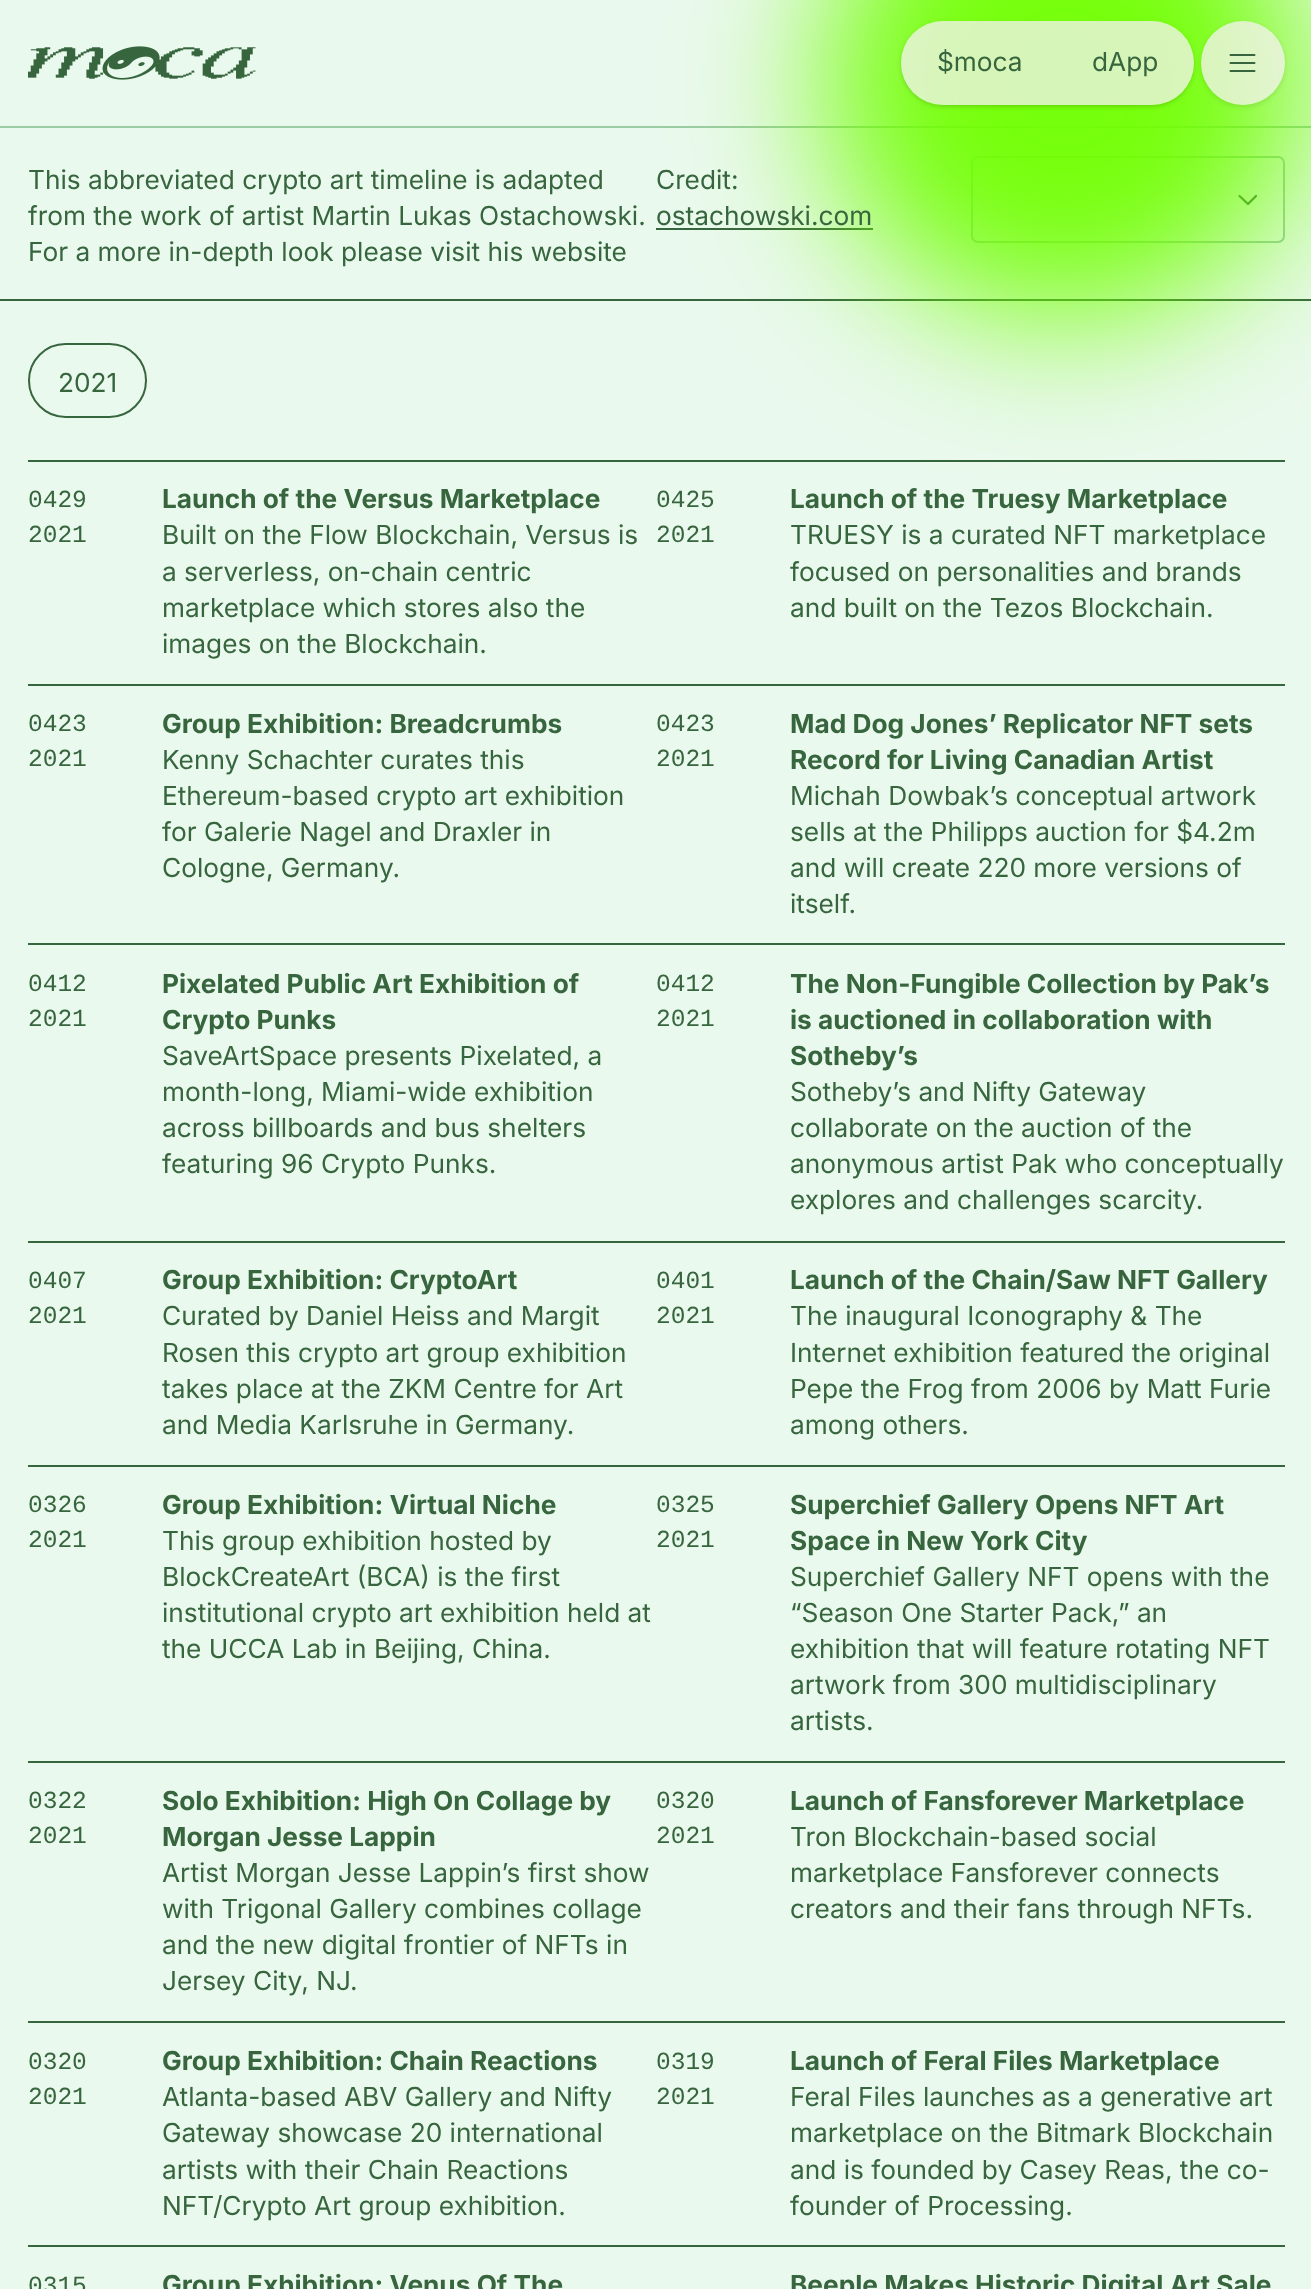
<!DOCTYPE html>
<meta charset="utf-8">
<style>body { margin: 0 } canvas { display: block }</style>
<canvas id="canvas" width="1311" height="2289"></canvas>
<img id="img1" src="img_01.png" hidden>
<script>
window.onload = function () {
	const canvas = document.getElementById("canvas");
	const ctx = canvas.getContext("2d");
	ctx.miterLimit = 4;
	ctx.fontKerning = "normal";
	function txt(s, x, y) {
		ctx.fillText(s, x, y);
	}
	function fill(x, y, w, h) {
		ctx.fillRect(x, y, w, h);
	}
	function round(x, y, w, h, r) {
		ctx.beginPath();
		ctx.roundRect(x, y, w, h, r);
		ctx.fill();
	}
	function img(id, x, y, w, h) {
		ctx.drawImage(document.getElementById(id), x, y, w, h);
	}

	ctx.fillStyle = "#EAF9ED";
	fill(0, 0, 1311, 2289);
	ctx.fillStyle = "#9CCBA4";
	fill(0, 126, 1311, 2);
	img("img1", 28, 46, 228, 34);
	ctx.fillStyle = "#37653E";
	fill(0, 299, 1311, 2);
	fill(656, 228, 217, 2);
	ctx.beginPath();
	ctx.roundRect(972, 157, 312, 85, 6);
	ctx.strokeStyle = "#9CCBA4";
	ctx.lineWidth = 2;
	ctx.stroke();
	ctx.beginPath();
	ctx.moveTo(1256, 196);
	ctx.lineTo(1248, 204);
	ctx.lineTo(1239.5, 196);
	ctx.strokeStyle = "#37653E";
	ctx.lineWidth = 2.3;
	ctx.lineCap = "round";
	ctx.lineJoin = "round";
	ctx.stroke();
	fill(28, 460, 1257, 2);
	ctx.fillStyle = "rgba(112, 255, 0, 0.95)";
	ctx.filter = "blur(70px)";
	ctx.beginPath();
	ctx.roundRect(824, -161, 482, 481, 240.5);
	ctx.fill();
	ctx.filter = "none";
	ctx.save();
	ctx.beginPath();
	ctx.moveTo(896, 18);
	ctx.lineTo(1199, 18);
	ctx.lineTo(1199, 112);
	ctx.lineTo(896, 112);
	ctx.closePath();
	ctx.moveTo(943, 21);
	ctx.lineTo(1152, 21);
	ctx.bezierCurveTo(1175, 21, 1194, 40, 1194, 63);
	ctx.bezierCurveTo(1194, 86, 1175, 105, 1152, 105);
	ctx.lineTo(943, 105);
	ctx.bezierCurveTo(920, 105, 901, 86, 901, 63);
	ctx.bezierCurveTo(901, 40, 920, 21, 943, 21);
	ctx.closePath();
	ctx.clip("evenodd");
	ctx.fillStyle = "rgba(0, 0, 0, 0.1)";
	ctx.filter = "blur(2px)";
	ctx.beginPath();
	ctx.roundRect(903, 25, 289, 80, 40);
	ctx.fill();
	ctx.filter = "none";
	ctx.restore();
	ctx.save();
	ctx.beginPath();
	ctx.moveTo(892, 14);
	ctx.lineTo(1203, 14);
	ctx.lineTo(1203, 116);
	ctx.lineTo(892, 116);
	ctx.closePath();
	ctx.moveTo(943, 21);
	ctx.lineTo(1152, 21);
	ctx.bezierCurveTo(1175, 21, 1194, 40, 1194, 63);
	ctx.bezierCurveTo(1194, 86, 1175, 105, 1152, 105);
	ctx.lineTo(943, 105);
	ctx.bezierCurveTo(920, 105, 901, 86, 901, 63);
	ctx.bezierCurveTo(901, 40, 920, 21, 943, 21);
	ctx.closePath();
	ctx.clip("evenodd");
	ctx.fillStyle = "rgba(0, 0, 0, 0.1)";
	ctx.filter = "blur(2.5px)";
	ctx.beginPath();
	ctx.roundRect(901, 23, 293, 84, 42);
	ctx.fill();
	ctx.filter = "none";
	ctx.restore();
	ctx.fillStyle = "rgba(247, 242, 242, 0.75)";
	round(901, 21, 293, 84, 42);
	ctx.save();
	ctx.beginPath();
	ctx.moveTo(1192, 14);
	ctx.lineTo(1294, 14);
	ctx.lineTo(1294, 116);
	ctx.lineTo(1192, 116);
	ctx.closePath();
	ctx.moveTo(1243, 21);
	ctx.bezierCurveTo(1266, 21, 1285, 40, 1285, 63);
	ctx.bezierCurveTo(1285, 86, 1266, 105, 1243, 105);
	ctx.bezierCurveTo(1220, 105, 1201, 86, 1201, 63);
	ctx.bezierCurveTo(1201, 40, 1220, 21, 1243, 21);
	ctx.closePath();
	ctx.clip("evenodd");
	ctx.fillStyle = "rgba(0, 0, 0, 0.1)";
	ctx.filter = "blur(2.5px)";
	ctx.beginPath();
	ctx.roundRect(1201, 23, 84, 84, 42);
	ctx.fill();
	ctx.filter = "none";
	ctx.restore();
	ctx.beginPath();
	ctx.arc(1243, 63, 42, 0, Math.PI * 2);
	ctx.fill();
	ctx.beginPath();
	ctx.moveTo(1230.5, 55);
	ctx.lineTo(1254.5, 55);
	ctx.moveTo(1230.5, 63);
	ctx.lineTo(1254.5, 63);
	ctx.moveTo(1230.5, 71);
	ctx.lineTo(1254.5, 71);
	ctx.lineWidth = 2;
	ctx.stroke();
	ctx.beginPath();
	ctx.roundRect(29, 344, 117, 73, 36.5);
	ctx.lineJoin = "miter";
	ctx.stroke();
	ctx.fillStyle = "#37653E";
	fill(28, 684, 1257, 2);
	fill(28, 943, 1257, 2);
	fill(28, 1241, 1257, 2);
	fill(28, 1465, 1257, 2);
	fill(28, 1761, 1257, 2);
	fill(28, 2021, 1257, 2);
	fill(28, 2245, 1257, 2);
	ctx.font = "26.25px Inter";
	txt("$moca", 937, 71);
	txt("dApp", 1092, 71);
	txt("This abbreviated crypto art timeline is adapted", 28, 189);
	txt("from the work of artist Martin Lukas Ostachowski.", 28, 225);
	txt("For a more in-depth look please visit his website", 28, 261);
	txt("Credit:", 656, 189);
	txt("ostachowski.com", 656, 225);
	txt("2021", 58, 392);
	ctx.font = "24.5px Liberation Mono";
	txt("0429", 28, 507);
	txt("2021", 28, 542);
	ctx.font = "bold 26.25px Inter";
	txt("Launch of the Versus Marketplace", 162, 508);
	ctx.font = "26.25px Inter";
	txt("Built on the Flow Blockchain, Versus is", 162, 544);
	txt("a serverless, on-chain centric", 162, 581);
	txt("marketplace which stores also the", 162, 617);
	txt("images on the Blockchain.", 162, 653);
	ctx.font = "24.5px Liberation Mono";
	txt("0425", 656, 507);
	txt("2021", 656, 542);
	ctx.font = "bold 26.25px Inter";
	txt("Launch of the Truesy Marketplace", 790, 508);
	ctx.font = "26.25px Inter";
	txt("TRUESY is a curated NFT marketplace", 790, 544);
	txt("focused on personalities and brands", 790, 581);
	txt("and built on the Tezos Blockchain.", 790, 617);
	ctx.font = "24.5px Liberation Mono";
	txt("0423", 28, 731);
	txt("2021", 28, 766);
	ctx.font = "bold 26.25px Inter";
	txt("Group Exhibition: Breadcrumbs", 162, 733);
	ctx.font = "26.25px Inter";
	txt("Kenny Schachter curates this", 162, 769);
	txt("Ethereum-based crypto art exhibition", 162, 805);
	txt("for Galerie Nagel and Draxler in", 162, 841);
	txt("Cologne, Germany.", 162, 877);
	ctx.font = "24.5px Liberation Mono";
	txt("0423", 656, 731);
	txt("2021", 656, 766);
	ctx.font = "bold 26.25px Inter";
	txt("Mad Dog Jones’ Replicator NFT sets", 790, 733);
	txt("Record for Living Canadian Artist", 790, 769);
	ctx.font = "26.25px Inter";
	txt("Michah Dowbak’s conceptual artwork", 790, 805);
	txt("sells at the Philipps auction for $4.2m", 790, 841);
	txt("and will create 220 more versions of", 790, 877);
	txt("itself.", 790, 913);
	ctx.font = "24.5px Liberation Mono";
	txt("0412", 28, 991);
	txt("2021", 28, 1026);
	ctx.font = "bold 26.25px Inter";
	txt("Pixelated Public Art Exhibition of", 162, 993);
	txt("Crypto Punks", 162, 1029);
	ctx.font = "26.25px Inter";
	txt("SaveArtSpace presents Pixelated, a", 162, 1065);
	txt("month-long, Miami-wide exhibition", 162, 1101);
	txt("across billboards and bus shelters", 162, 1137);
	txt("featuring 96 Crypto Punks.", 162, 1173);
	ctx.font = "24.5px Liberation Mono";
	txt("0412", 656, 991);
	txt("2021", 656, 1026);
	ctx.font = "bold 26.25px Inter";
	txt("The Non-Fungible Collection by Pak’s", 790, 993);
	txt("is auctioned in collaboration with", 790, 1029);
	txt("Sotheby’s", 790, 1065);
	ctx.font = "26.25px Inter";
	txt("Sotheby’s and Nifty Gateway", 790, 1101);
	txt("collaborate on the auction of the", 790, 1137);
	txt("anonymous artist Pak who conceptually", 790, 1173);
	txt("explores and challenges scarcity.", 790, 1209);
	ctx.font = "24.5px Liberation Mono";
	txt("0407", 28, 1288);
	txt("2021", 28, 1323);
	ctx.font = "bold 26.25px Inter";
	txt("Group Exhibition: CryptoArt", 162, 1289);
	ctx.font = "26.25px Inter";
	txt("Curated by Daniel Heiss and Margit", 162, 1325);
	txt("Rosen this crypto art group exhibition", 162, 1362);
	txt("takes place at the ZKM Centre for Art", 162, 1398);
	txt("and Media Karlsruhe in Germany.", 162, 1434);
	ctx.font = "24.5px Liberation Mono";
	txt("0401", 656, 1288);
	txt("2021", 656, 1323);
	ctx.font = "bold 26.25px Inter";
	txt("Launch of the Chain/Saw NFT Gallery", 790, 1289);
	ctx.font = "26.25px Inter";
	txt("The inaugural Iconography & The", 790, 1325);
	txt("Internet exhibition featured the original", 790, 1362);
	txt("Pepe the Frog from 2006 by Matt Furie", 790, 1398);
	txt("among others.", 790, 1434);
	ctx.font = "24.5px Liberation Mono";
	txt("0326", 28, 1512);
	txt("2021", 28, 1547);
	ctx.font = "bold 26.25px Inter";
	txt("Group Exhibition: Virtual Niche", 162, 1514);
	ctx.font = "26.25px Inter";
	txt("This group exhibition hosted by", 162, 1550);
	txt("BlockCreateArt (BCA) is the first", 162, 1586);
	txt("institutional crypto art exhibition held at", 162, 1622);
	txt("the UCCA Lab in Beijing, China.", 162, 1658);
	ctx.font = "24.5px Liberation Mono";
	txt("0325", 656, 1512);
	txt("2021", 656, 1547);
	ctx.font = "bold 26.25px Inter";
	txt("Superchief Gallery Opens NFT Art", 790, 1514);
	txt("Space in New York City", 790, 1550);
	ctx.font = "26.25px Inter";
	txt("Superchief Gallery NFT opens with the", 790, 1586);
	txt("“Season One Starter Pack,” an", 790, 1622);
	txt("exhibition that will feature rotating NFT", 790, 1658);
	txt("artwork from 300 multidisciplinary", 790, 1694);
	txt("artists.", 790, 1730);
	ctx.font = "24.5px Liberation Mono";
	txt("0322", 28, 1808);
	txt("2021", 28, 1843);
	ctx.font = "bold 26.25px Inter";
	txt("Solo Exhibition: High On Collage by", 162, 1810);
	txt("Morgan Jesse Lappin", 162, 1846);
	ctx.font = "26.25px Inter";
	txt("Artist Morgan Jesse Lappin’s first show", 162, 1882);
	txt("with Trigonal Gallery combines collage", 162, 1918);
	txt("and the new digital frontier of NFTs in", 162, 1954);
	txt("Jersey City, NJ.", 162, 1990);
	ctx.font = "24.5px Liberation Mono";
	txt("0320", 656, 1808);
	txt("2021", 656, 1843);
	ctx.font = "bold 26.25px Inter";
	txt("Launch of Fansforever Marketplace", 790, 1810);
	ctx.font = "26.25px Inter";
	txt("Tron Blockchain-based social", 790, 1846);
	txt("marketplace Fansforever connects", 790, 1882);
	txt("creators and their fans through NFTs.", 790, 1918);
	ctx.font = "24.5px Liberation Mono";
	txt("0320", 28, 2069);
	txt("2021", 28, 2104);
	ctx.font = "bold 26.25px Inter";
	txt("Group Exhibition: Chain Reactions", 162, 2070);
	ctx.font = "26.25px Inter";
	txt("Atlanta-based ABV Gallery and Nifty", 162, 2106);
	txt("Gateway showcase 20 international", 162, 2142);
	txt("artists with their Chain Reactions", 162, 2179);
	txt("NFT/Crypto Art group exhibition.", 162, 2215);
	ctx.font = "24.5px Liberation Mono";
	txt("0319", 656, 2069);
	txt("2021", 656, 2104);
	ctx.font = "bold 26.25px Inter";
	txt("Launch of Feral Files Marketplace", 790, 2070);
	ctx.font = "26.25px Inter";
	txt("Feral Files launches as a generative art", 790, 2106);
	txt("marketplace on the Bitmark Blockchain", 790, 2142);
	txt("and is founded by Casey Reas, the co-", 790, 2179);
	txt("founder of Processing.", 790, 2215);
	ctx.font = "24.5px Liberation Mono";
	txt("0315", 28, 2293);
	ctx.font = "bold 26.25px Inter";
	txt("Group Exhibition: Venus Of The", 162, 2294);
	txt("Beeple Makes Historic Digital Art Sale", 790, 2294);
};
</script>
